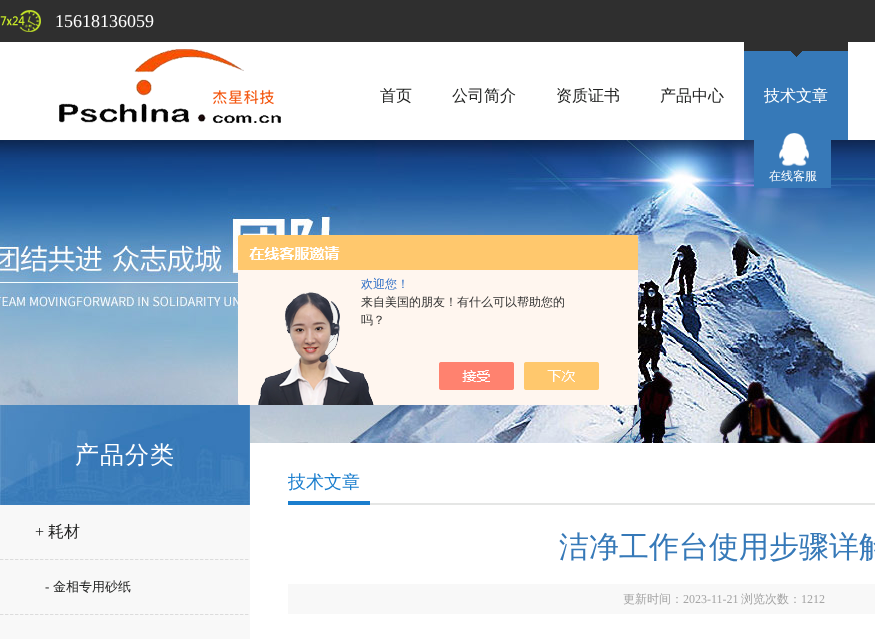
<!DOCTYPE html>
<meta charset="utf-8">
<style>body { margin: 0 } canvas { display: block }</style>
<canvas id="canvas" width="875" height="639"></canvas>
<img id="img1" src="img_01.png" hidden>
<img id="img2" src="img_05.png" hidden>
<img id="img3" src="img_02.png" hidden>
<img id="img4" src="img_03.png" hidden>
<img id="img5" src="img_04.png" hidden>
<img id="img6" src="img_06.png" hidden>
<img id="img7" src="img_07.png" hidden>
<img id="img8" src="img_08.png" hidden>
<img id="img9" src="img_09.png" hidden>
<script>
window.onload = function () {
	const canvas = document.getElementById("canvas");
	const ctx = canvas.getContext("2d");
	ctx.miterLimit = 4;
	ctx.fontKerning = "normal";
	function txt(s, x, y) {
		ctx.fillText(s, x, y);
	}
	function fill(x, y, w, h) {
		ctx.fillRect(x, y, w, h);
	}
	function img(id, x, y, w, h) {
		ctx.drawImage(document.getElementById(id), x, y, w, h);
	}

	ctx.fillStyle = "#FFFFFF";
	fill(0, 0, 875, 639);
	ctx.fillStyle = "#2F2F2F";
	fill(0, 0, 875, 42);
	img("img1", 0, 10, 41, 22);
	img("img2", 0, 140, 875, 303);
	img("img3", 0, 140, 875, 17);
	img("img4", 59, 49, 222, 74);
	ctx.fillStyle = "#3679B8";
	fill(744, 51, 104, 89);
	img("img5", 744, 42, 104, 15);
	ctx.fillStyle = "#3779B8";
	fill(754, 140, 77, 48);
	img("img6", 779, 133, 30, 33);
	img("img7", 238, 235, 400, 170);
	ctx.fillStyle = "#F8F8F8";
	fill(0, 505, 250, 134);
	img("img8", 0, 405, 250, 100);
	img("img9", 0, 559, 249, 1);
	img("img9", 0, 614, 249, 1);
	ctx.fillStyle = "#E5E6E5";
	fill(370, 503, 505, 2);
	ctx.fillStyle = "#1A7ECE";
	fill(288, 501, 82, 4);
	ctx.fillStyle = "#F8F8F8";
	fill(288, 584, 587, 30);
	ctx.font = "18px Liberation Serif";
	ctx.fillStyle = "#FFFFFF";
	txt("15618136059", 55, 27);
	ctx.font = "500 16px WenQuanYi Zen Hei";
	ctx.fillStyle = "#222322";
	txt("首页", 380, 101);
	txt("公司简介", 452, 101);
	txt("资质证书", 556, 101);
	txt("产品中心", 660, 101);
	ctx.fillStyle = "#FFFFFF";
	txt("技术文章", 764, 101);
	ctx.font = "500 12px WenQuanYi Zen Hei";
	txt("在线客服", 769, 180);
	ctx.fillStyle = "#2E6EC6";
	txt("欢迎您！", 361, 288);
	ctx.fillStyle = "#333333";
	txt("来自美国的朋友！有什么可以帮助您的", 361, 306);
	txt("吗？", 361, 324);
	ctx.letterSpacing = "1px";
	ctx.font = "500 24px WenQuanYi Zen Hei";
	ctx.fillStyle = "#FFFFFF";
	txt("产品分类", 75, 463);
	ctx.letterSpacing = "0px";
	ctx.font = "16px Liberation Serif";
	ctx.fillStyle = "#222322";
	txt("+", 35, 537);
	ctx.font = "500 16px WenQuanYi Zen Hei";
	txt("耗材", 48, 537);
	ctx.font = "13px Liberation Serif";
	txt("-", 45, 591);
	ctx.font = "500 13px WenQuanYi Zen Hei";
	txt("金相专用砂纸", 53, 591);
	ctx.font = "500 18px WenQuanYi Zen Hei";
	ctx.fillStyle = "#1A7ECE";
	txt("技术文章", 288, 488);
	ctx.font = "500 30px WenQuanYi Zen Hei";
	ctx.fillStyle = "#3679B8";
	txt("洁净工作台使用步骤详解", 559, 557);
	ctx.font = "500 12px WenQuanYi Zen Hei";
	ctx.fillStyle = "#A5A5A5";
	txt("更新时间：", 623, 603);
	ctx.font = "12px Liberation Serif";
	txt("2023-11-21", 683, 603);
	ctx.font = "500 12px WenQuanYi Zen Hei";
	txt("浏览次数：", 741, 603);
	ctx.font = "12px Liberation Serif";
	txt("1212", 801, 603);
};
</script>
